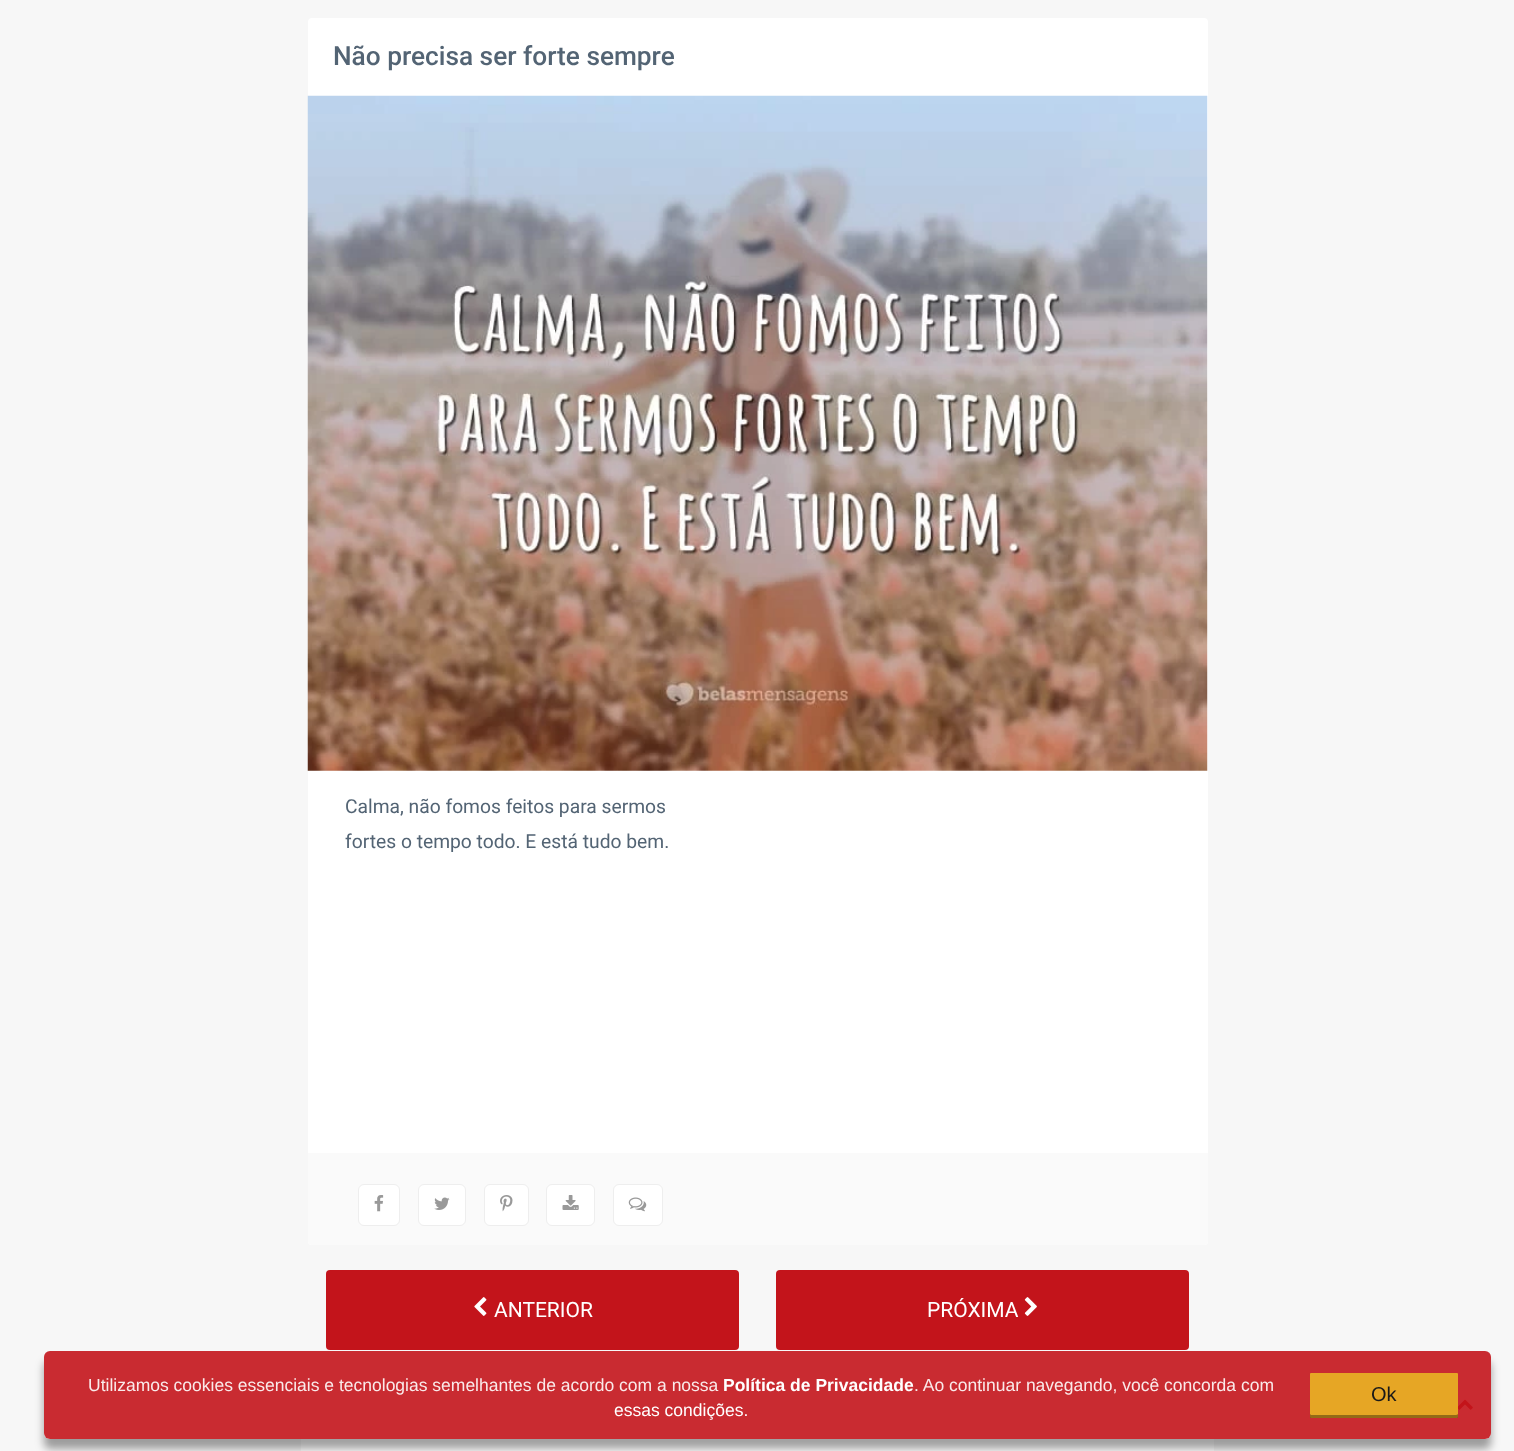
<!DOCTYPE html>
<meta charset="utf-8">
<style>body { margin: 0 } canvas { display: block }</style>
<canvas id="canvas" width="1514" height="1451"></canvas>
<img id="img1" src="img_01.png" hidden>
<img id="img2" src="img_02.png" hidden>
<img id="img3" src="img_03.png" hidden>
<img id="img4" src="img_04.png" hidden>
<img id="img5" src="img_05.png" hidden>
<img id="img6" src="img_06.png" hidden>
<img id="img7" src="img_07.png" hidden>
<img id="img8" src="img_08.png" hidden>
<img id="img9" src="img_09.png" hidden>
<script>
window.onload = function () {
	const canvas = document.getElementById("canvas");
	const ctx = canvas.getContext("2d");
	ctx.miterLimit = 4;
	ctx.fontKerning = "normal";
	function txt(s, x, y) {
		ctx.fillText(s, x, y);
	}
	function fill(x, y, w, h) {
		ctx.fillRect(x, y, w, h);
	}
	function round(x, y, w, h, r) {
		ctx.beginPath();
		ctx.roundRect(x, y, w, h, r);
		ctx.fill();
	}
	function img(id, x, y, w, h) {
		ctx.drawImage(document.getElementById(id), x, y, w, h);
	}

	ctx.fillStyle = "#F7F7F7";
	fill(0, 0, 1514, 1451);
	ctx.fillStyle = "#FFFFFF";
	round(308, 18, 900, 1227, 4);
	img("img1", 307, 95, 901, 676);
	ctx.fillStyle = "#FAFAFA";
	ctx.beginPath();
	ctx.roundRect(308, 1153, 900, 92, [0, 0, 4, 4]);
	ctx.fill();
	ctx.fillStyle = "#FFFFFF";
	ctx.beginPath();
	ctx.roundRect(358.5, 1184.5, 41, 41, 5.5);
	ctx.fill();
	ctx.strokeStyle = "#EEEEEE";
	ctx.stroke();
	img("img2", 374, 1195, 10, 17);
	ctx.beginPath();
	ctx.roundRect(418.5, 1184.5, 47, 41, 5.5);
	ctx.fill();
	ctx.stroke();
	img("img3", 434, 1197, 16, 13);
	ctx.beginPath();
	ctx.roundRect(484.5, 1184.5, 44, 41, 5.5);
	ctx.fill();
	ctx.stroke();
	img("img4", 500, 1195, 13, 17);
	ctx.beginPath();
	ctx.roundRect(546.5, 1184.5, 48, 41, 5.5);
	ctx.fill();
	ctx.stroke();
	img("img5", 562, 1195, 17, 15);
	ctx.beginPath();
	ctx.roundRect(613.5, 1184.5, 49, 41, 5.5);
	ctx.fill();
	ctx.stroke();
	img("img6", 628, 1197, 19, 15);
	ctx.fillStyle = "#C3141B";
	round(326, 1270, 413, 80, 4);
	img("img7", 474, 1297, 13, 19);
	round(776, 1270, 413, 80, 4);
	img("img8", 1024, 1297, 13, 19);
	ctx.fillStyle = "#FFFFFF";
	round(301, 1369, 913, 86, 4);
	round(1440, 1384, 50, 42, 5);
	img("img9", 1457, 1399, 16, 11);
	ctx.save();
	ctx.beginPath();
	ctx.moveTo(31, 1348);
	ctx.lineTo(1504, 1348);
	ctx.lineTo(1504, 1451);
	ctx.lineTo(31, 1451);
	ctx.closePath();
	ctx.moveTo(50, 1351);
	ctx.lineTo(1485, 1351);
	ctx.bezierCurveTo(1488.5, 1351, 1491, 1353.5, 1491, 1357);
	ctx.lineTo(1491, 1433);
	ctx.bezierCurveTo(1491, 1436.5, 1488.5, 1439, 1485, 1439);
	ctx.lineTo(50, 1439);
	ctx.bezierCurveTo(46.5, 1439, 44, 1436.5, 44, 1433);
	ctx.lineTo(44, 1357);
	ctx.bezierCurveTo(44, 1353.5, 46.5, 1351, 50, 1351);
	ctx.closePath();
	ctx.clip("evenodd");
	ctx.fillStyle = "rgba(0, 0, 0, 0.37)";
	ctx.filter = "blur(4px)";
	ctx.beginPath();
	ctx.roundRect(44, 1361, 1447, 88, 6);
	ctx.fill();
	ctx.filter = "none";
	ctx.restore();
	ctx.fillStyle = "rgba(195, 20, 27, 0.9)";
	round(44, 1351, 1447, 88, 6);
	ctx.fillStyle = "rgba(233, 180, 37, 0.9)";
	round(1310, 1373, 148, 45, 1);
	ctx.fillStyle = "rgba(0, 0, 0, 0.36)";
	ctx.beginPath();
	ctx.moveTo(1310, 1414);
	ctx.lineTo(1310, 1417);
	ctx.bezierCurveTo(1310, 1418, 1310, 1418, 1311, 1418);
	ctx.lineTo(1457, 1418);
	ctx.bezierCurveTo(1458, 1418, 1458, 1418, 1458, 1417);
	ctx.lineTo(1458, 1414);
	ctx.bezierCurveTo(1458, 1414, 1457, 1415, 1456, 1415);
	ctx.lineTo(1311, 1415);
	ctx.closePath();
	ctx.fill();
	ctx.font = "500 26.25px Roboto";
	ctx.fillStyle = "#536474";
	txt("Não precisa ser forte sempre", 333, 65);
	ctx.font = "19.25px Roboto";
	txt("Calma, não fomos feitos para sermos", 345, 813);
	txt("fortes o tempo todo. E está tudo bem.", 345, 848);
	ctx.font = "21px Roboto";
	ctx.fillStyle = "#FFFFFF";
	txt("ANTERIOR", 494, 1317);
	txt("PRÓXIMA", 927, 1317);
	ctx.font = "17.5px Liberation Sans";
	ctx.fillStyle = "#FAEAEA";
	txt("Utilizamos cookies essenciais e tecnologias semelhantes de acordo com a nossa", 88, 1391);
	ctx.font = "bold 17.5px Liberation Sans";
	ctx.fillStyle = "#FFFFFF";
	txt("Política de Privacidade", 723, 1391);
	ctx.font = "17.5px Liberation Sans";
	ctx.fillStyle = "#FAEAEA";
	txt(". Ao continuar navegando, você concorda com", 914, 1391);
	ctx.fillStyle = "#FFFFFF";
	txt("essas condições.", 614, 1416);
	ctx.font = "20px Liberation Sans";
	ctx.fillStyle = "#191919";
	txt("Ok", 1371, 1401);
};
</script>
